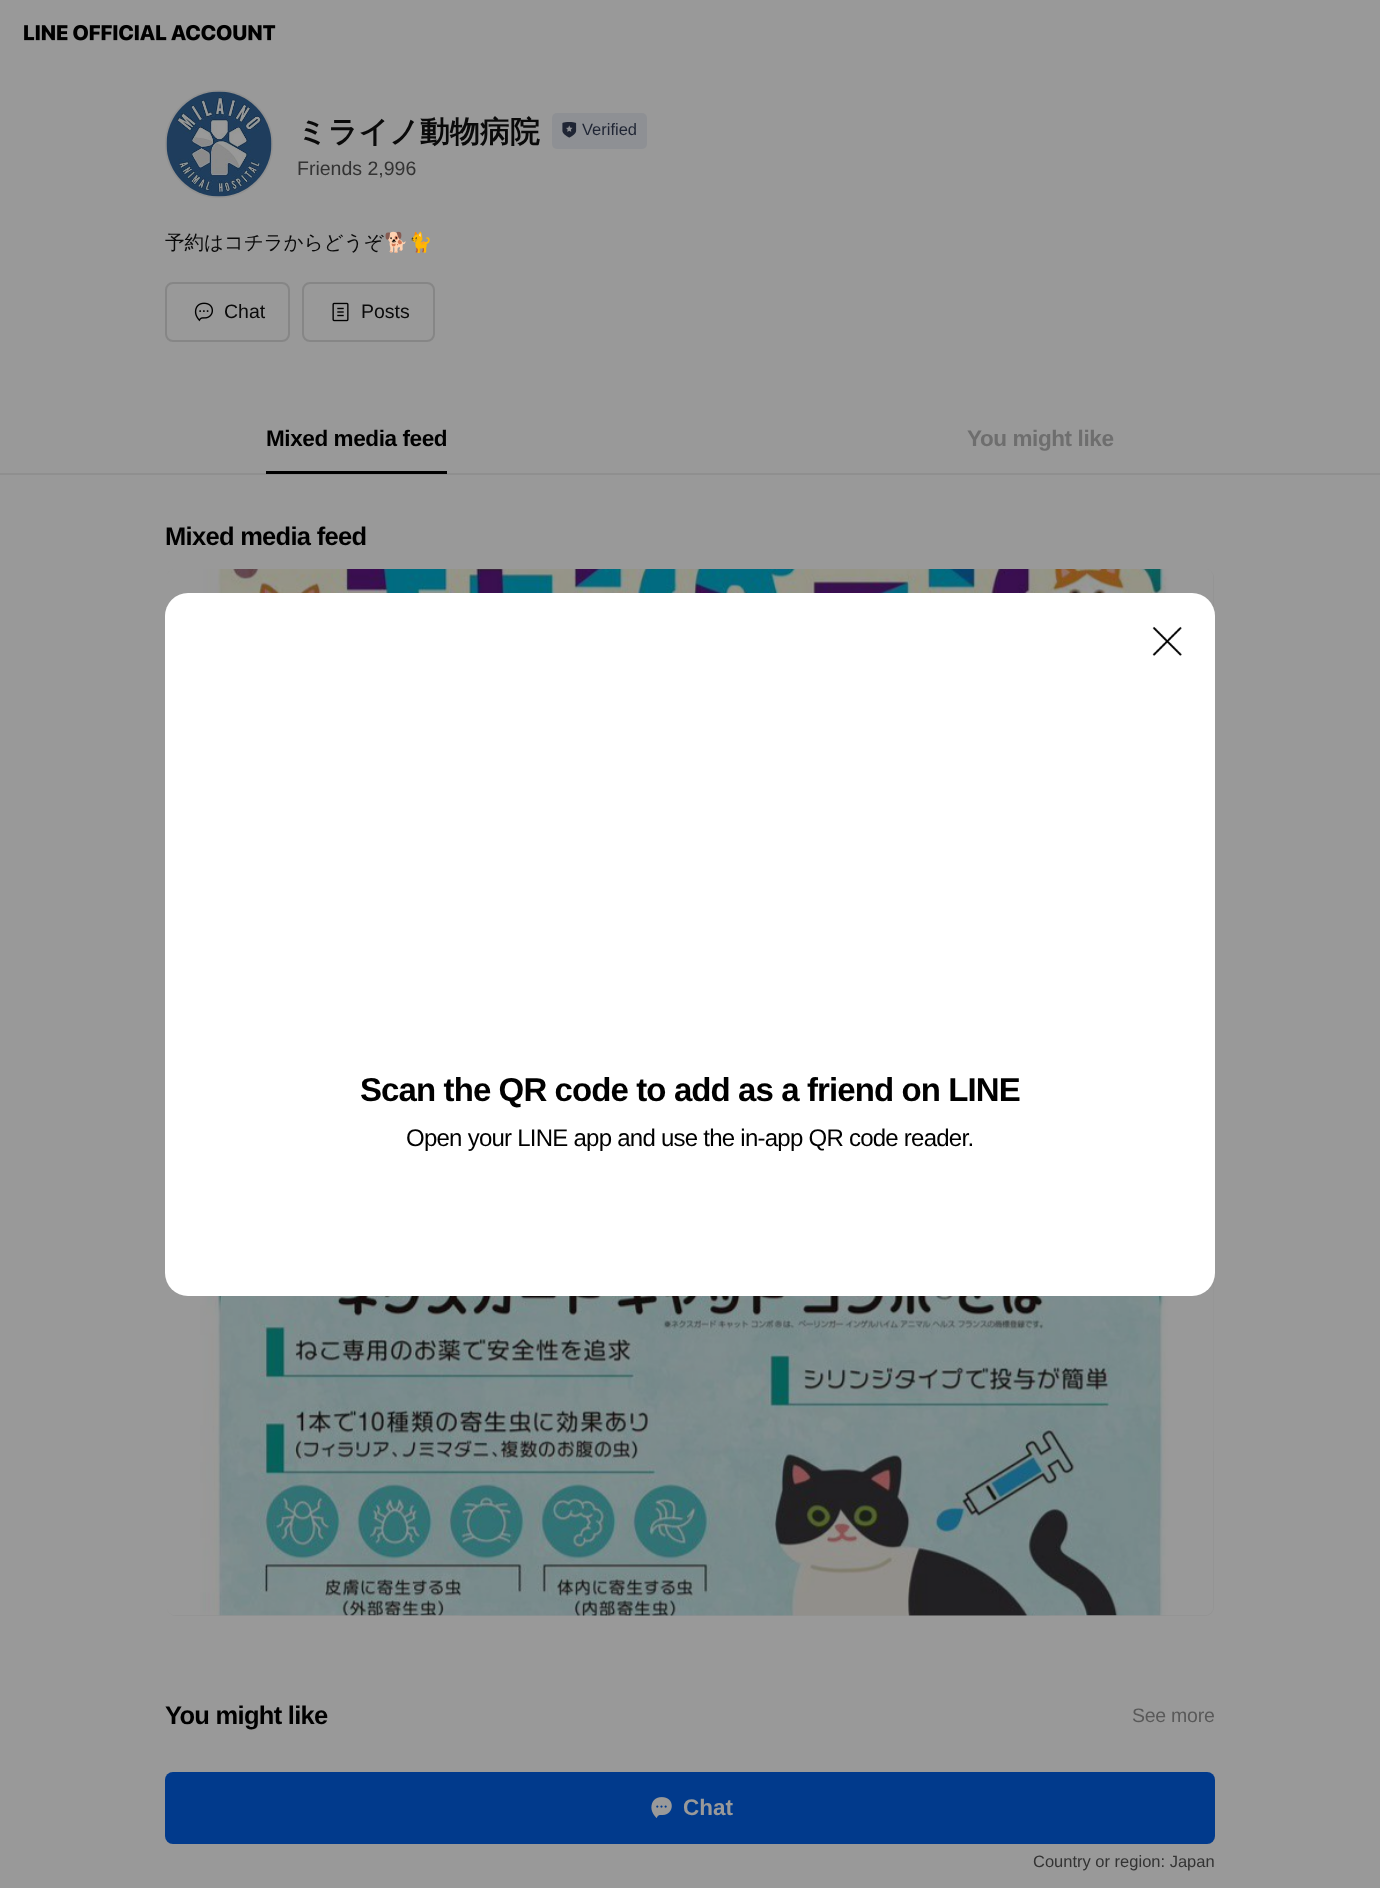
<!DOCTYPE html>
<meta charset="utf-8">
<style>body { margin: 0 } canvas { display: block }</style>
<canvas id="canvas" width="1380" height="1888"></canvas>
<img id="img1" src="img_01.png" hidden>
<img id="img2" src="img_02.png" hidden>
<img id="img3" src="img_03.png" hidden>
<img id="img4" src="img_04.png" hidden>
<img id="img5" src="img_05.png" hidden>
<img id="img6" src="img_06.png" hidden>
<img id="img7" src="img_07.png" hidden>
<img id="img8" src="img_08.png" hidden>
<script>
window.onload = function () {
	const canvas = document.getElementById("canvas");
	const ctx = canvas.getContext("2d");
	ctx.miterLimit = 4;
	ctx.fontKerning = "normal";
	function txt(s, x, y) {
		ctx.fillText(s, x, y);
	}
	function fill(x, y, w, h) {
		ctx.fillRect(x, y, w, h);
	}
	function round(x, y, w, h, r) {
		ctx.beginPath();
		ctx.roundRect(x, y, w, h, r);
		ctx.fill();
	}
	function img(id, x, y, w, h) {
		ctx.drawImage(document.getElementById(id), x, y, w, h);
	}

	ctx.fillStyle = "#999999";
	fill(0, 0, 1380, 1888);
	img("img1", 24, 24, 252, 17);
	ctx.beginPath();
	ctx.arc(219, 144, 53, 0, Math.PI * 2);
	ctx.strokeStyle = "#919191";
	ctx.lineWidth = 2;
	ctx.stroke();
	img("img2", 166, 91, 106, 106);
	ctx.fillStyle = "#8E9094";
	round(552, 113, 95, 36, 5);
	img("img3", 562, 122, 15, 16);
	ctx.beginPath();
	ctx.roundRect(166, 283, 123, 58, 7);
	ctx.strokeStyle = "#868686";
	ctx.stroke();
	img("img4", 194, 302, 19, 20);
	ctx.beginPath();
	ctx.roundRect(303, 283, 131, 58, 7);
	ctx.stroke();
	img("img5", 332, 302, 17, 20);
	ctx.fillStyle = "#8F8F8F";
	fill(0, 473, 1380, 2);
	ctx.fillStyle = "#000000";
	fill(266, 471, 181, 3);
	ctx.fillStyle = "#939393";
	round(167, 569, 1047, 1047, 9);
	img("img6", 167, 569, 1047, 1047);
	ctx.fillStyle = "#013A8C";
	round(165, 1772, 1050, 72, 8);
	img("img7", 651, 1797, 21, 21);
	ctx.fillStyle = "#FFFFFF";
	round(165, 593, 1050, 703, 23);
	img("img8", 1152, 626, 30, 30);
	ctx.font = "bold 30px WenQuanYi Zen Hei";
	ctx.fillStyle = "#0A0A0A";
	txt("ミライノ動物病院", 297, 142);
	ctx.font = "16.5px Liberation Sans";
	ctx.fillStyle = "#1F2534";
	txt("Verified", 582, 135);
	ctx.font = "19.5px Liberation Sans";
	ctx.fillStyle = "#333333";
	txt("Friends 2,996", 297, 175);
	ctx.font = "500 19.5px WenQuanYi Zen Hei";
	ctx.fillStyle = "#0A0A0A";
	txt("予約はコチラからどうぞ", 165, 249);
	ctx.font = "19.5px Noto Color Emoji";
	txt("🐕🐈", 384, 249);
	ctx.font = "19.5px Liberation Sans";
	txt("Chat", 224, 318);
	txt("Posts", 361, 318);
	ctx.letterSpacing = "-0.4px";
	ctx.font = "bold 22.5px Liberation Sans";
	ctx.fillStyle = "#000000";
	txt("Mixed media feed", 266, 446);
	ctx.fillStyle = "#6E6E6E";
	txt("You might like", 967, 446);
	ctx.letterSpacing = "-0.7px";
	ctx.font = "bold 25.5px Liberation Sans";
	ctx.fillStyle = "#000000";
	txt("Mixed media feed", 165, 545);
	txt("You might like", 165, 1724);
	ctx.letterSpacing = "-0.25px";
	ctx.font = "19.5px Liberation Sans";
	ctx.fillStyle = "#595959";
	txt("See more", 1132, 1722);
	ctx.letterSpacing = "0px";
	ctx.font = "bold 22.5px Liberation Sans";
	ctx.fillStyle = "#999999";
	txt("Chat", 683, 1815);
	ctx.font = "16.5px Liberation Sans";
	ctx.fillStyle = "#333333";
	txt("Country or region: Japan", 1033, 1867);
	ctx.letterSpacing = "-0.9px";
	ctx.font = "bold 33px Liberation Sans";
	ctx.fillStyle = "#000000";
	txt("Scan the QR code to add as a friend on LINE", 360, 1101);
	ctx.letterSpacing = "-0.75px";
	ctx.font = "24px Liberation Sans";
	txt("Open your LINE app and use the in-app QR code reader.", 406, 1146);
};
</script>
